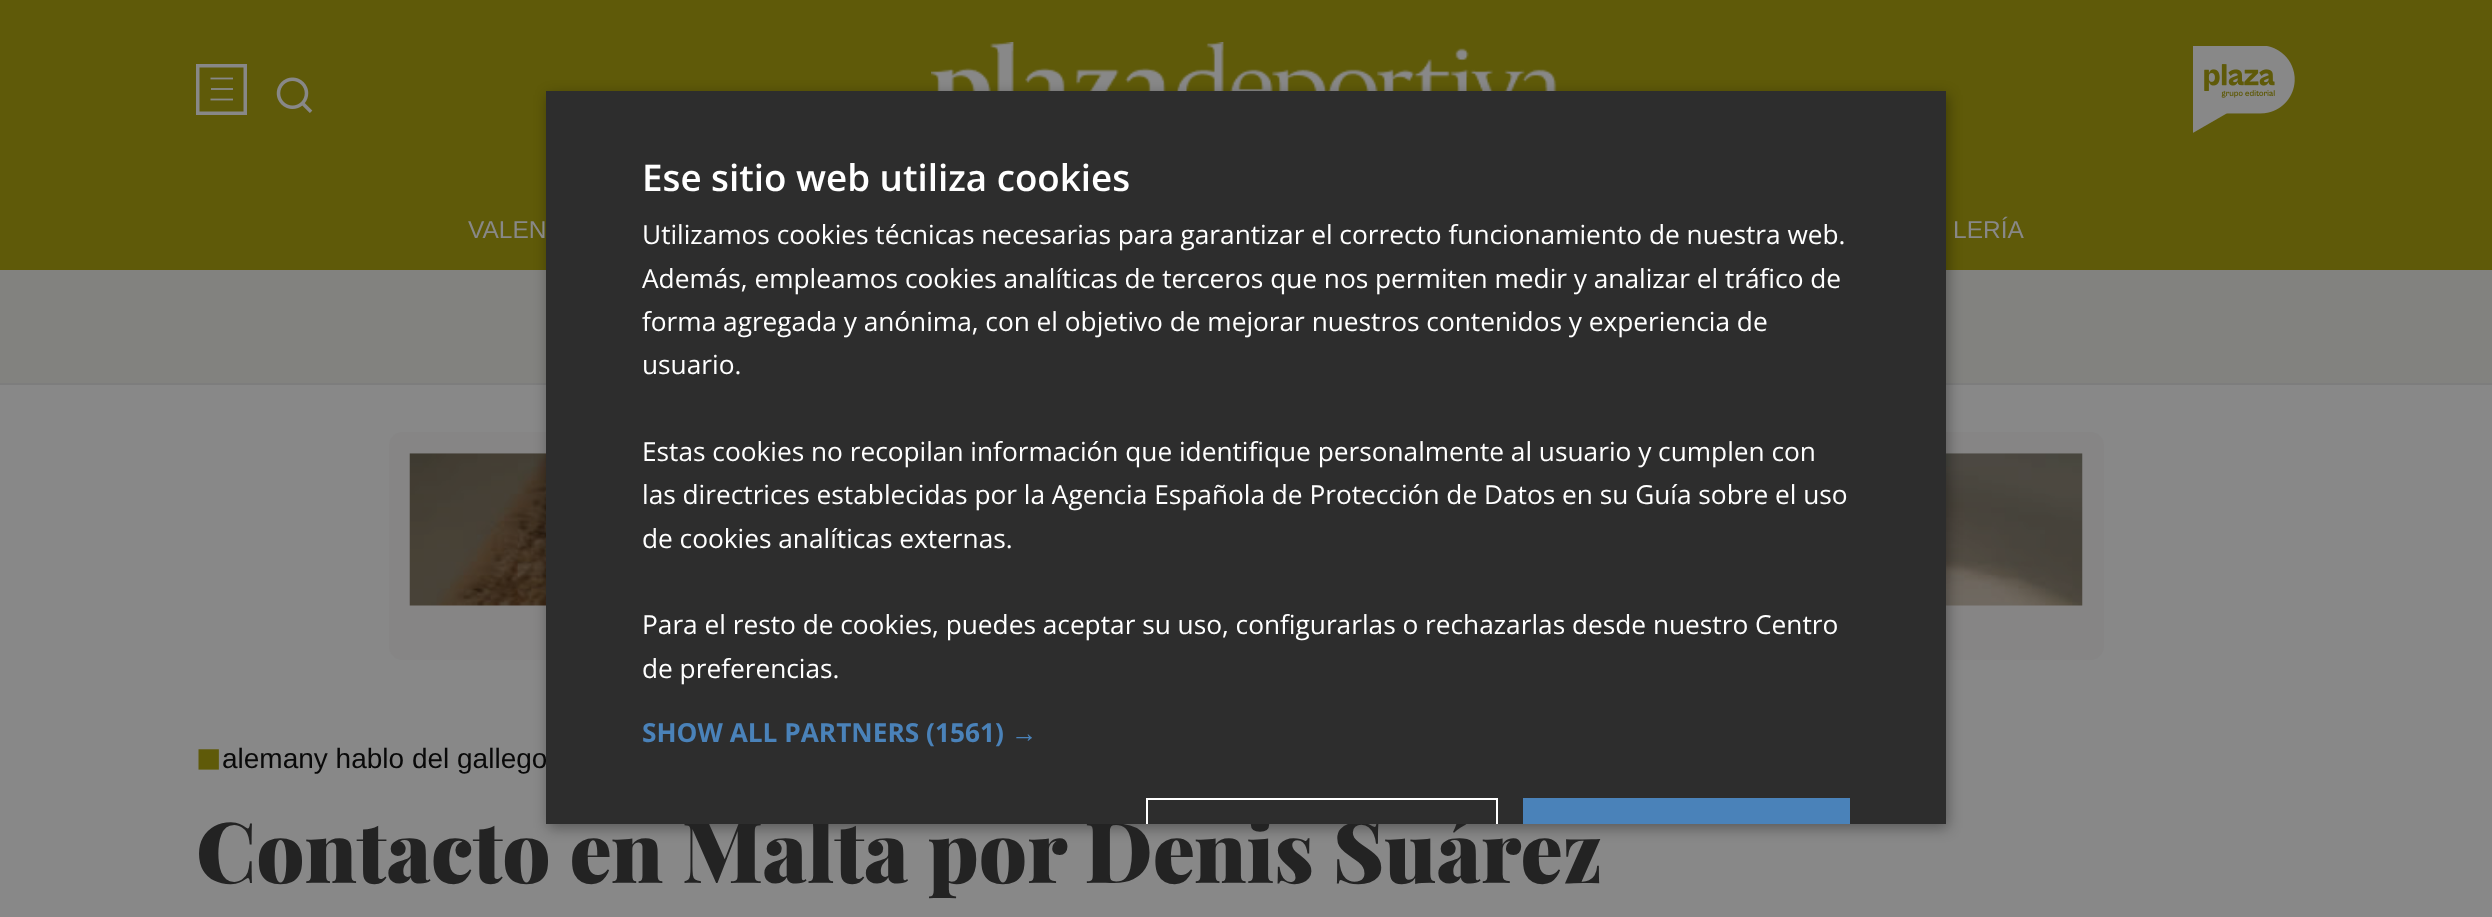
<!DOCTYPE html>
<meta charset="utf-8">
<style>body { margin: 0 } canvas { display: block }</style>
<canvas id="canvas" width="2492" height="917"></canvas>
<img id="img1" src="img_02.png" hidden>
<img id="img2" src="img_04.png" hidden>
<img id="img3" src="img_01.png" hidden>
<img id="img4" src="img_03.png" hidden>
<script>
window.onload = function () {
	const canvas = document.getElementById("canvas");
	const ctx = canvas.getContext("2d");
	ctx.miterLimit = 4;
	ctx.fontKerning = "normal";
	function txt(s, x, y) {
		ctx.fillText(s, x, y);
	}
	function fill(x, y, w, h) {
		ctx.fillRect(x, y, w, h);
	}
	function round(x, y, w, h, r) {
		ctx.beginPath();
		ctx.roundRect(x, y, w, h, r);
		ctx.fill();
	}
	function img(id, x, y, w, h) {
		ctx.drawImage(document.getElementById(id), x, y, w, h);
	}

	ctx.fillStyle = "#888888";
	fill(0, 0, 2492, 917);
	ctx.fillStyle = "#5F5A09";
	fill(0, 0, 2492, 270);
	ctx.fillStyle = "#7D7D7D";
	fill(0, 383, 2492, 2);
	img("img1", 931, 42, 626, 49);
	ctx.fillStyle = "#82827F";
	fill(0, 270, 2492, 113);
	ctx.fillStyle = "#868585";
	round(389, 432, 1715, 228, 14);
	img("img2", 409, 453, 1674, 153);
	ctx.fillStyle = "rgba(0, 0, 0, 0.35)";
	ctx.filter = "blur(7px)";
	ctx.beginPath();
	ctx.rect(548, 95, 1400, 733);
	ctx.fill();
	ctx.filter = "none";
	ctx.strokeStyle = "#888888";
	ctx.lineWidth = 3.5;
	ctx.strokeRect(197.75, 65.75, 47.5, 47.5);
	ctx.beginPath();
	ctx.moveTo(210.5, 78.5);
	ctx.lineTo(233, 78.5);
	ctx.lineWidth = 1.8;
	ctx.stroke();
	ctx.fillStyle = "#84847C";
	fill(211, 88, 22, 2);
	ctx.beginPath();
	ctx.moveTo(210.5, 99.5);
	ctx.lineTo(233, 99.5);
	ctx.stroke();
	img("img3", 276, 77, 37, 36);
	img("img4", 2193, 46, 102, 87);
	ctx.font = "24.5px Liberation Sans";
	ctx.fillStyle = "#888888";
	txt("VALEN", 468, 238);
	txt("LERÍA", 1953, 238);
	ctx.font = "42px Liberation Sans";
	ctx.fillStyle = "#5F5A09";
	txt("■", 196, 772);
	ctx.font = "28px Liberation Sans";
	ctx.fillStyle = "#090909";
	txt("alemany hablo del gallego", 222, 768);
	ctx.font = "900 84px Playfair Display";
	ctx.fillStyle = "#232323";
	txt("Contacto en Malta por Denis Suárez", 196, 883);
	ctx.fillStyle = "#2D2D2D";
	fill(546, 91, 1400, 733);
	ctx.font = "600 36.75px Open Sans";
	ctx.fillStyle = "#FFFFFF";
	txt("Ese sitio web utiliza cookies", 642, 191);
	ctx.save();
	ctx.beginPath();
	ctx.rect(546, 91, 1400, 733);
	ctx.clip();
	ctx.strokeStyle = "#FFFFFF";
	ctx.lineWidth = 2;
	ctx.strokeRect(1147, 799, 350, 75);
	ctx.restore();
	ctx.fillStyle = "#4A82B9";
	fill(1523, 798, 327, 26);
	ctx.font = "bold 26.25px Liberation Sans";
	txt("→", 1011, 742);
	ctx.font = "bold 26.25px Open Sans";
	txt("SHOW ALL PARTNERS (1561)", 642, 742);
	ctx.font = "26.25px Open Sans";
	ctx.fillStyle = "#FFFFFF";
	txt("de preferencias.", 642, 678);
	txt("Para el resto de cookies, puedes aceptar su uso, configurarlas o rechazarlas desde nuestro Centro", 642, 634);
	txt("de cookies analíticas externas.", 642, 548);
	txt("las directrices establecidas por la Agencia Española de Protección de Datos en su Guía sobre el uso", 642, 504);
	txt("Estas cookies no recopilan información que identifique personalmente al usuario y cumplen con", 642, 461);
	txt("usuario.", 642, 374);
	txt("forma agregada y anónima, con el objetivo de mejorar nuestros contenidos y experiencia de", 642, 331);
	txt("Además, empleamos cookies analíticas de terceros que nos permiten medir y analizar el tráfico de", 642, 288);
	txt("Utilizamos cookies técnicas necesarias para garantizar el correcto funcionamiento de nuestra web.", 642, 244);
};
</script>
